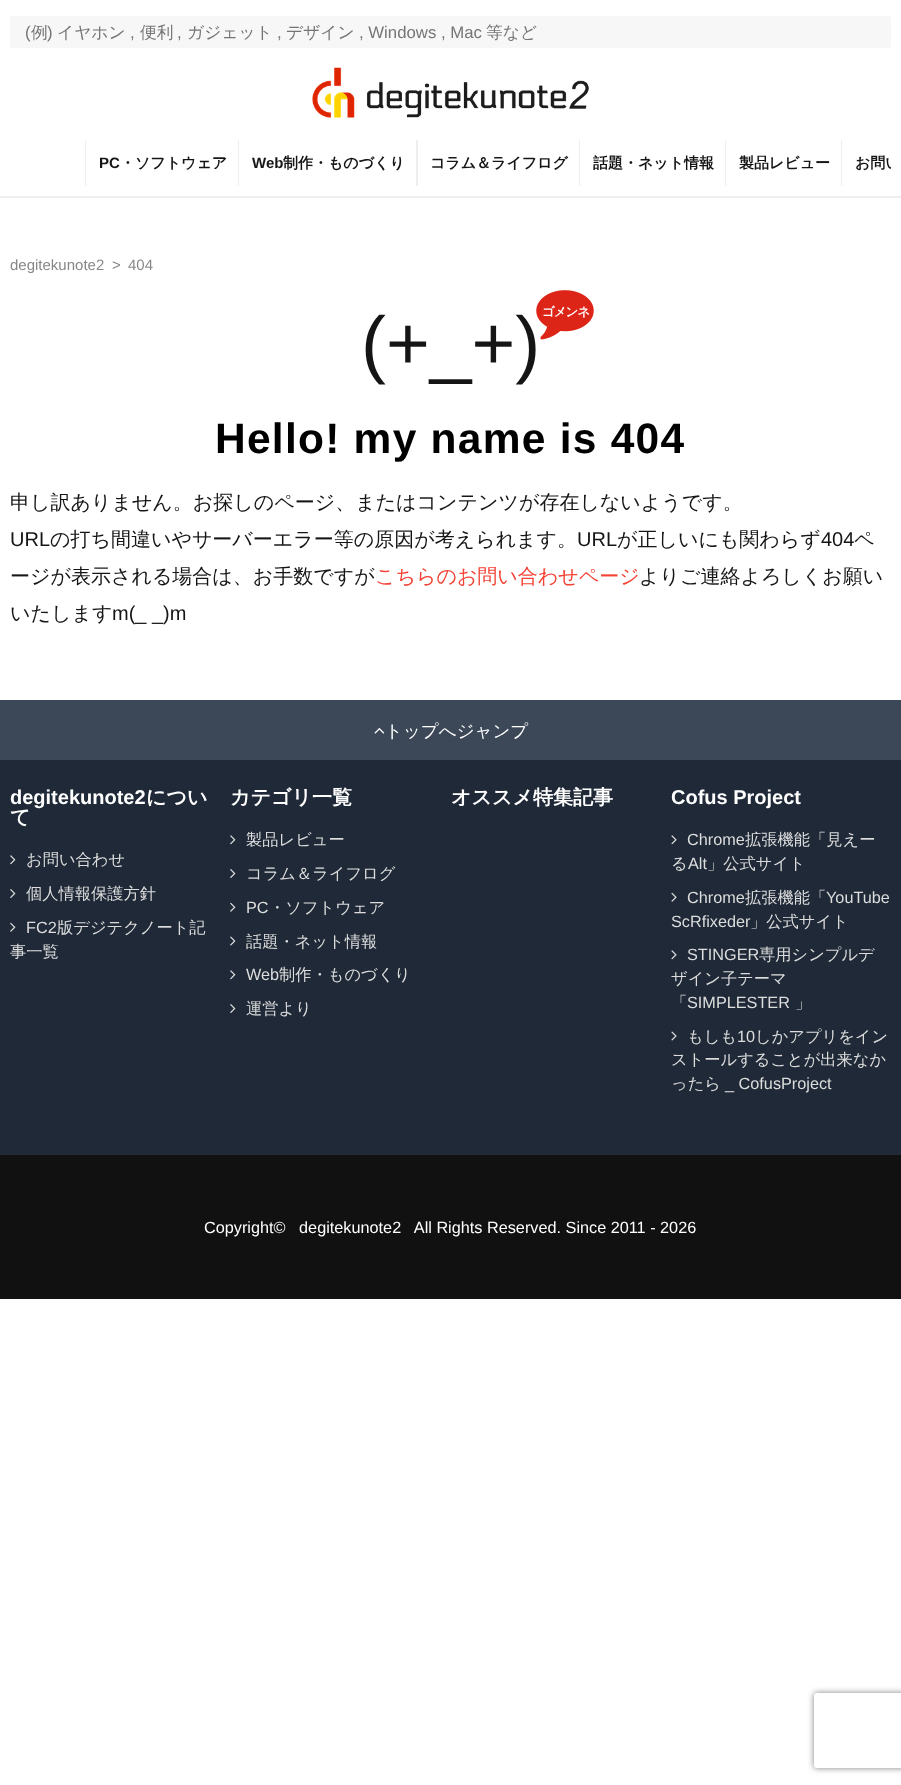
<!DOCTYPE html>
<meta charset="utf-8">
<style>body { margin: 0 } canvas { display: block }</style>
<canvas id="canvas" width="901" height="1785"></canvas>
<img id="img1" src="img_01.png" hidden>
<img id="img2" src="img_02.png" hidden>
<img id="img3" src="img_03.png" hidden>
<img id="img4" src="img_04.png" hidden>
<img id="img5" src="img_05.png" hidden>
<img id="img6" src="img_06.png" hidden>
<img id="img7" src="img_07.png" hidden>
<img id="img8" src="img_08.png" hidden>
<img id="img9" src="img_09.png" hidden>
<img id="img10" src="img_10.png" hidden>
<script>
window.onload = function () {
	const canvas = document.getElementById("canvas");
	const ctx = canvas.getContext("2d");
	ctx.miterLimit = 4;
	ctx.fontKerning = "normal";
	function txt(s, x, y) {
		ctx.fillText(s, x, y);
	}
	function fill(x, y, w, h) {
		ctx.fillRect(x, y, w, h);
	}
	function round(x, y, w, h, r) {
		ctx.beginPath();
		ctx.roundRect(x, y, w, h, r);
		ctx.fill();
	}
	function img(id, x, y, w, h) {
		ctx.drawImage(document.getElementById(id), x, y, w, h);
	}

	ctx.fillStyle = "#FFFFFF";
	fill(0, 0, 901, 1785);
	ctx.fillStyle = "#EEEEEE";
	fill(0, 196, 901, 2);
	ctx.fillStyle = "#F7F7F7";
	round(10, 16, 881, 32, 2.5);
	img("img1", 312, 67, 277, 51);
	ctx.fillStyle = "#EEEEEE";
	fill(85, 140, 1, 46);
	fill(238, 140, 1, 46);
	fill(416, 140, 2, 46);
	fill(579, 140, 1, 46);
	fill(725, 140, 1, 46);
	fill(841, 140, 1, 46);
	img("img2", 536, 290, 58, 50);
	ctx.fillStyle = "#1F2937";
	fill(0, 760, 901, 395);
	ctx.fillStyle = "#3C4858";
	fill(0, 700, 901, 60);
	img("img3", 374, 728, 11, 6);
	img("img4", 10, 855, 6, 10);
	img("img5", 10, 889, 6, 9);
	img("img6", 10, 922, 6, 10);
	img("img4", 230, 835, 6, 10);
	img("img5", 230, 869, 6, 9);
	img("img6", 230, 902, 6, 10);
	img("img7", 230, 936, 6, 10);
	img("img4", 230, 970, 6, 10);
	img("img5", 230, 1004, 6, 9);
	img("img8", 671, 835, 6, 10);
	img("img9", 671, 892, 6, 10);
	img("img8", 671, 950, 6, 10);
	img("img10", 671, 1031, 6, 10);
	ctx.fillStyle = "#111111";
	fill(0, 1155, 901, 144);
	ctx.save();
	ctx.beginPath();
	ctx.moveTo(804, 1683);
	ctx.lineTo(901, 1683);
	ctx.lineTo(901, 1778);
	ctx.lineTo(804, 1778);
	ctx.closePath();
	ctx.moveTo(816.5, 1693);
	ctx.lineTo(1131.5, 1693);
	ctx.bezierCurveTo(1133, 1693, 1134, 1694, 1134, 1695.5);
	ctx.lineTo(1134, 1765.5);
	ctx.bezierCurveTo(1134, 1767, 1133, 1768, 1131.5, 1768);
	ctx.lineTo(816.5, 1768);
	ctx.bezierCurveTo(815, 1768, 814, 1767, 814, 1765.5);
	ctx.lineTo(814, 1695.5);
	ctx.bezierCurveTo(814, 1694, 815, 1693, 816.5, 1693);
	ctx.closePath();
	ctx.clip("evenodd");
	ctx.fillStyle = "#808080";
	ctx.filter = "blur(3px)";
	ctx.beginPath();
	ctx.roundRect(814, 1693, 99, 75, 2.5);
	ctx.fill();
	ctx.filter = "none";
	ctx.restore();
	ctx.font = "16.75px Liberation Sans";
	ctx.fillStyle = "#757575";
	txt("(", 25, 38);
	ctx.font = "500 16.75px WenQuanYi Zen Hei";
	txt("例", 31, 38);
	ctx.font = "16.75px Liberation Sans";
	txt(")", 47, 38);
	ctx.font = "500 16.75px WenQuanYi Zen Hei";
	txt("イヤホン", 57, 38);
	ctx.font = "16.75px Liberation Sans";
	txt(",", 130, 38);
	ctx.font = "500 16.75px WenQuanYi Zen Hei";
	txt("便利", 140, 38);
	ctx.font = "16.75px Liberation Sans";
	txt(",", 177, 38);
	ctx.font = "500 16.75px WenQuanYi Zen Hei";
	txt("ガジェット", 187, 38);
	ctx.font = "16.75px Liberation Sans";
	txt(",", 277, 38);
	ctx.font = "500 16.75px WenQuanYi Zen Hei";
	txt("デザイン", 286, 38);
	ctx.font = "16.75px Liberation Sans";
	txt(", Windows , Mac", 359, 38);
	ctx.font = "500 16.75px WenQuanYi Zen Hei";
	txt("等など", 486, 38);
	ctx.font = "bold 15px Liberation Sans";
	ctx.fillStyle = "#151515";
	txt("PC", 99, 168);
	ctx.font = "bold 15px WenQuanYi Zen Hei";
	txt("・ソフトウェア", 120, 168);
	ctx.font = "bold 15px Liberation Sans";
	txt("Web", 252, 168);
	ctx.font = "bold 15px WenQuanYi Zen Hei";
	txt("制作・ものづくり", 283, 168);
	txt("コラム＆ライフログ", 430, 168);
	txt("話題・ネット情報", 593, 168);
	txt("製品レビュー", 739, 168);
	ctx.save();
	ctx.beginPath();
	ctx.rect(10, 140, 881, 46);
	ctx.clip();
	txt("お問い", 855, 168);
	ctx.restore();
	ctx.font = "15px Liberation Sans";
	ctx.fillStyle = "#888888";
	txt("degitekunote2", 10, 270);
	txt(">", 112, 270);
	txt("404", 128, 270);
	ctx.letterSpacing = "-1px";
	ctx.font = "bold 12.5px WenQuanYi Zen Hei";
	ctx.fillStyle = "#FFFFFF";
	txt("ゴメンネ", 542, 316);
	ctx.letterSpacing = "0px";
	ctx.font = "75px Liberation Sans";
	ctx.fillStyle = "#151515";
	txt("(+_+)", 361, 369);
	ctx.letterSpacing = "1.25px";
	ctx.font = "bold 42.5px Liberation Sans";
	ctx.fillStyle = "#000000";
	txt("Hello! my name is 404", 215, 453);
	ctx.letterSpacing = "0px";
	ctx.font = "500 20px WenQuanYi Zen Hei";
	ctx.fillStyle = "#151515";
	txt("申し訳ありません。お探しのページ、またはコンテンツが存在しないようです。", 10, 509);
	ctx.font = "20px Liberation Sans";
	txt("URL", 10, 546);
	ctx.font = "500 20px WenQuanYi Zen Hei";
	txt("の打ち間違いやサーバーエラー等の原因が考えられます。", 50, 546);
	ctx.font = "20px Liberation Sans";
	txt("URL", 577, 546);
	ctx.font = "500 20px WenQuanYi Zen Hei";
	txt("が正しいにも関わらず", 617, 546);
	ctx.font = "20px Liberation Sans";
	txt("404", 821, 546);
	ctx.font = "500 20px WenQuanYi Zen Hei";
	txt("ペ", 854, 546);
	txt("ージが表示される場合は、お手数ですが", 10, 583);
	ctx.fillStyle = "#F44336";
	txt("こちらのお問い合わせページ", 375, 583);
	ctx.fillStyle = "#151515";
	txt("よりご連絡よろしくお願い", 639, 583);
	txt("いたします", 10, 620);
	ctx.font = "20px Liberation Sans";
	txt("m(_ _)m", 112, 620);
	ctx.font = "500 17.5px WenQuanYi Zen Hei";
	ctx.fillStyle = "#FFFFFF";
	txt("トップへジャンプ", 385, 737);
	ctx.font = "bold 20px Liberation Sans";
	txt("degitekunote2", 10, 804);
	ctx.font = "bold 20px WenQuanYi Zen Hei";
	txt("につい", 146, 804);
	txt("て", 10, 824);
	ctx.font = "500 16.25px WenQuanYi Zen Hei";
	ctx.fillStyle = "#DDDDDD";
	txt("お問い合わせ", 26, 865);
	txt("個人情報保護方針", 26, 899);
	ctx.font = "16.25px Liberation Sans";
	txt("FC2", 26, 933);
	ctx.font = "500 16.25px WenQuanYi Zen Hei";
	txt("版デジテクノート記", 57, 933);
	txt("事一覧", 10, 957);
	ctx.font = "bold 20px WenQuanYi Zen Hei";
	ctx.fillStyle = "#FFFFFF";
	txt("カテゴリ一覧", 230, 804);
	ctx.font = "500 16.25px WenQuanYi Zen Hei";
	ctx.fillStyle = "#DDDDDD";
	txt("製品レビュー", 246, 845);
	txt("コラム＆ライフログ", 246, 879);
	ctx.font = "16.25px Liberation Sans";
	txt("PC", 246, 913);
	ctx.font = "500 16.25px WenQuanYi Zen Hei";
	txt("・ソフトウェア", 269, 913);
	txt("話題・ネット情報", 246, 947);
	ctx.font = "16.25px Liberation Sans";
	txt("Web", 246, 980);
	ctx.font = "500 16.25px WenQuanYi Zen Hei";
	txt("制作・ものづくり", 279, 980);
	txt("運営より", 246, 1014);
	ctx.font = "bold 20px WenQuanYi Zen Hei";
	ctx.fillStyle = "#FFFFFF";
	txt("オススメ特集記事", 451, 804);
	ctx.font = "bold 20px Liberation Sans";
	txt("Cofus Project", 671, 804);
	ctx.font = "16.25px Liberation Sans";
	ctx.fillStyle = "#DDDDDD";
	txt("Chrome", 687, 845);
	ctx.font = "500 16.25px WenQuanYi Zen Hei";
	txt("拡張機能「見えー", 745, 845);
	txt("る", 671, 869);
	ctx.font = "16.25px Liberation Sans";
	txt("Alt", 688, 869);
	ctx.font = "500 16.25px WenQuanYi Zen Hei";
	txt("」公式サイト", 707, 869);
	ctx.font = "16.25px Liberation Sans";
	txt("Chrome", 687, 903);
	ctx.font = "500 16.25px WenQuanYi Zen Hei";
	txt("拡張機能「", 745, 903);
	ctx.font = "16.25px Liberation Sans";
	txt("YouTube", 826, 903);
	txt("ScRfixeder", 671, 927);
	ctx.font = "500 16.25px WenQuanYi Zen Hei";
	txt("」公式サイト", 750, 927);
	ctx.font = "16.25px Liberation Sans";
	txt("STINGER", 687, 960);
	ctx.font = "500 16.25px WenQuanYi Zen Hei";
	txt("専用シンプルデ", 759, 960);
	txt("ザイン子テーマ", 671, 984);
	txt("「", 671, 1008);
	ctx.font = "16.25px Liberation Sans";
	txt("SIMPLESTER", 687, 1008);
	ctx.font = "500 16.25px WenQuanYi Zen Hei";
	txt("」", 795, 1008);
	txt("もしも", 687, 1042);
	ctx.font = "16.25px Liberation Sans";
	txt("10", 737, 1042);
	ctx.font = "500 16.25px WenQuanYi Zen Hei";
	txt("しかアプリをイン", 755, 1042);
	txt("ストールすることが出来なか", 671, 1065);
	txt("ったら", 671, 1089);
	ctx.font = "16.25px Liberation Sans";
	txt("_ CofusProject", 725, 1089);
	ctx.fillStyle = "#FFFFFF";
	txt("Copyright©   degitekunote2   All Rights Reserved. Since 2011 - 2026", 204, 1233);
};
</script>
